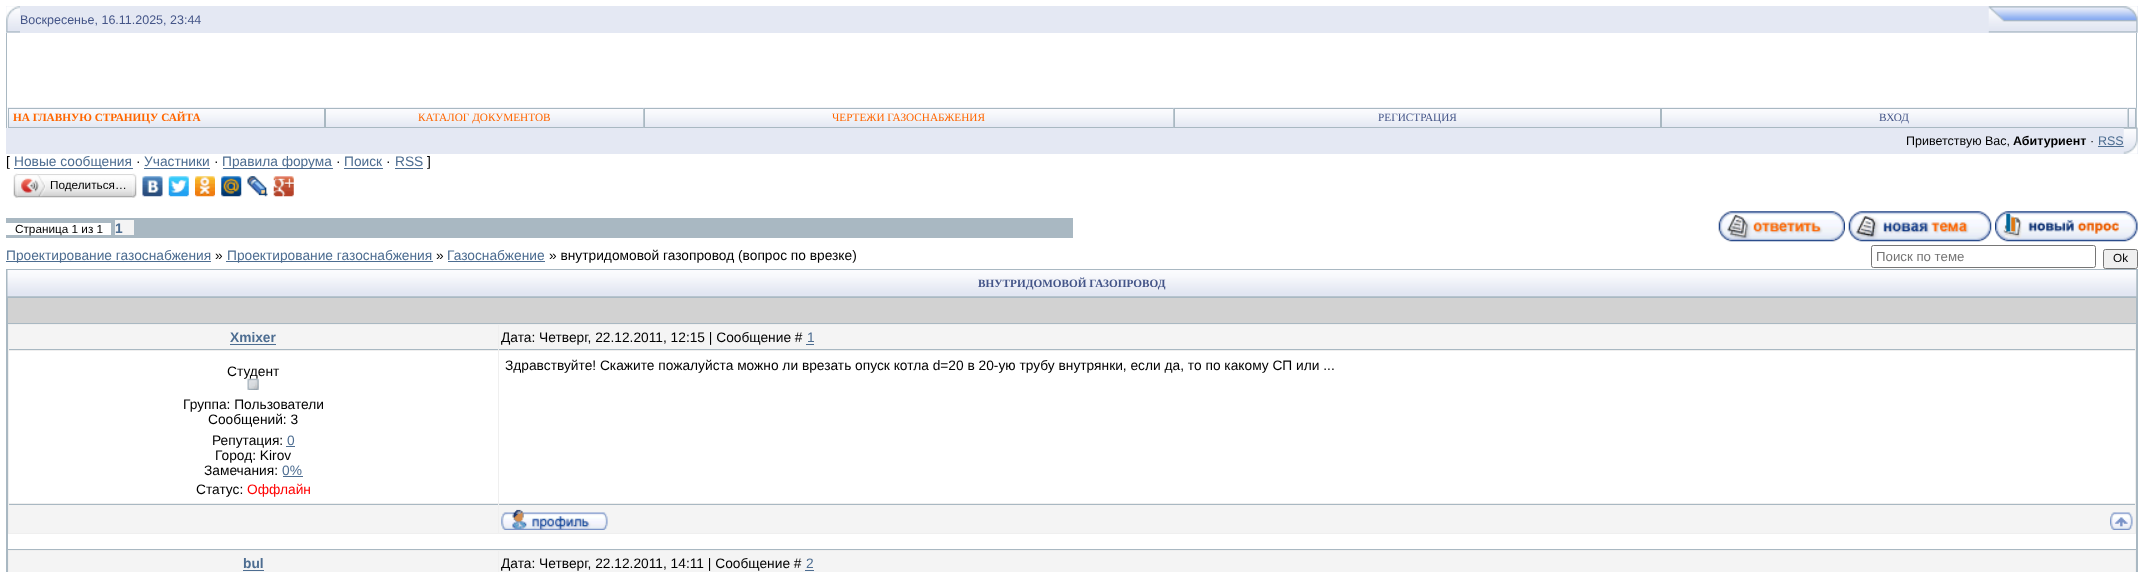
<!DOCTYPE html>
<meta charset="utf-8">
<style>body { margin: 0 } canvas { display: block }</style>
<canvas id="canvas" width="2143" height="572"></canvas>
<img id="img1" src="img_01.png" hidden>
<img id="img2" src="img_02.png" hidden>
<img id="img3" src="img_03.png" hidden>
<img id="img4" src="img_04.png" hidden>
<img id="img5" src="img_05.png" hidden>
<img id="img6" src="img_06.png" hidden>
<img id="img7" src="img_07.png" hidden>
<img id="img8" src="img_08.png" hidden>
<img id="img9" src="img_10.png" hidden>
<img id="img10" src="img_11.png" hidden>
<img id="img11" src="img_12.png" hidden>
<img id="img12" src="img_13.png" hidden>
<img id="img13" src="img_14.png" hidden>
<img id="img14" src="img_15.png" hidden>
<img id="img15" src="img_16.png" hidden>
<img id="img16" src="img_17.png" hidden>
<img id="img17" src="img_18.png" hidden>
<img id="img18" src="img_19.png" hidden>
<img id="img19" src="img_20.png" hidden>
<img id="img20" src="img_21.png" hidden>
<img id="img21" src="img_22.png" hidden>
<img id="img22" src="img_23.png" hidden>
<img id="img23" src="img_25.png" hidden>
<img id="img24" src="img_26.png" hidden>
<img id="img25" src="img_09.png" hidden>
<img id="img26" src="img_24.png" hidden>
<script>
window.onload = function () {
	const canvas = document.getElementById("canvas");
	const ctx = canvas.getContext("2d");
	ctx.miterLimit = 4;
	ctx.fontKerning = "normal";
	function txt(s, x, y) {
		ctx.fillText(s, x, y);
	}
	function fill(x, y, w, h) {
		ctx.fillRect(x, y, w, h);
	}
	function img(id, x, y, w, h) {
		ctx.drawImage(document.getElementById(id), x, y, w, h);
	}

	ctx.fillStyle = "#FFFFFF";
	fill(0, 0, 2143, 572);
	ctx.fillStyle = "#E4E8F3";
	fill(6, 6, 2132, 27);
	img("img1", 6, 6, 14, 27);
	img("img2", 1988, 6, 150, 27);
	ctx.fillStyle = "#A9B8C2";
	fill(2136, 33, 1, 95);
	fill(6, 33, 1, 95);
	img("img3", 7, 107, 318, 21);
	ctx.strokeStyle = "#A9B8C2";
	ctx.strokeRect(8.5, 108.5, 316, 19);
	img("img4", 325, 107, 319, 20);
	ctx.strokeRect(325.5, 108.5, 318, 19);
	img("img5", 643, 107, 531, 21);
	ctx.strokeRect(644.5, 108.5, 529, 19);
	img("img6", 1173, 107, 489, 21);
	ctx.strokeRect(1174.5, 108.5, 486, 19);
	img("img7", 1661, 107, 467, 20);
	ctx.strokeRect(1661.5, 108.5, 466, 19);
	img("img8", 2127, 107, 10, 21);
	ctx.strokeRect(2128.5, 108.5, 7, 19);
	ctx.fillStyle = "#E4E8F3";
	fill(6, 128, 2132, 26);
	ctx.fillStyle = "#4D6D91";
	fill(2098, 146, 26, 1);
	fill(14, 168, 119, 1);
	fill(144, 168, 66, 1);
	fill(223, 168, 110, 1);
	fill(344, 168, 39, 1);
	fill(395, 168, 28, 1);
	img("img9", 17, 174, 116, 24);
	img("img10", 13, 173, 5, 25);
	img("img11", 21, 175, 25, 22);
	img("img12", 132, 173, 5, 25);
	img("img13", 142, 176, 21, 21);
	img("img14", 168, 176, 21, 21);
	img("img15", 195, 176, 20, 21);
	img("img16", 221, 176, 21, 21);
	img("img17", 247, 176, 21, 21);
	img("img18", 273, 176, 21, 21);
	ctx.fillStyle = "#A9B8C2";
	fill(6, 218, 1067, 20);
	ctx.fillStyle = "#FFFFFF";
	fill(6, 223, 105, 12);
	ctx.fillStyle = "#F4F4F4";
	fill(115, 220, 19, 15);
	img("img19", 1718, 211, 127, 31);
	img("img20", 1848, 211, 144, 31);
	img("img21", 1995, 211, 143, 31);
	ctx.fillStyle = "#4D6D91";
	fill(6, 261, 205, 1);
	fill(226, 261, 207, 1);
	fill(448, 261, 97, 1);
	ctx.beginPath();
	ctx.roundRect(1871.5, 245.5, 224, 22, 2);
	ctx.strokeStyle = "#767676";
	ctx.stroke();
	ctx.fillStyle = "#EFEFEF";
	ctx.beginPath();
	ctx.roundRect(2103.5, 249.5, 34, 19, 2);
	ctx.fill();
	ctx.stroke();
	ctx.fillStyle = "#A9B8C2";
	fill(6, 269, 2132, 303);
	img("img22", 7, 270, 2130, 27);
	ctx.fillStyle = "#D2D2D2";
	fill(8, 298, 2128, 25);
	ctx.fillStyle = "#FFFFFF";
	fill(8, 534, 2128, 15);
	ctx.fillStyle = "#EFEFEF";
	fill(8, 324, 2128, 210);
	ctx.fillStyle = "#F4F4F4";
	fill(9, 325, 489, 24);
	ctx.fillStyle = "#A9B8C2";
	fill(9, 349, 489, 1);
	ctx.fillStyle = "#4D6D91";
	fill(230, 344, 46, 1);
	ctx.fillStyle = "#F4F4F4";
	fill(499, 325, 1636, 24);
	ctx.fillStyle = "#A9B8C2";
	fill(499, 349, 1636, 1);
	ctx.fillStyle = "#4D6D91";
	fill(806, 344, 8, 1);
	ctx.fillStyle = "#FFFFFF";
	fill(9, 351, 489, 152);
	ctx.fillStyle = "#4D6D91";
	fill(286, 446, 9, 1);
	fill(283, 476, 20, 1);
	ctx.fillStyle = "#FFFFFF";
	fill(499, 351, 1636, 152);
	ctx.fillStyle = "#F4F4F4";
	fill(9, 505, 489, 28);
	ctx.fillStyle = "#A9B8C2";
	fill(9, 504, 489, 1);
	ctx.fillStyle = "#F4F4F4";
	fill(499, 505, 1636, 28);
	ctx.fillStyle = "#A9B8C2";
	fill(499, 504, 1636, 1);
	img("img23", 501, 509, 107, 21);
	img("img24", 2110, 512, 23, 18);
	ctx.fillStyle = "#EFEFEF";
	fill(8, 550, 2128, 22);
	ctx.fillStyle = "#F4F4F4";
	fill(9, 551, 489, 21);
	ctx.fillStyle = "#4D6D91";
	fill(243, 570, 21, 1);
	ctx.fillStyle = "#F4F4F4";
	fill(499, 551, 1636, 21);
	ctx.fillStyle = "#4D6D91";
	fill(805, 570, 9, 1);
	ctx.font = "12.5px Liberation Sans";
	ctx.fillStyle = "#445588";
	txt("Воскресенье, 16.11.2025, 23:44", 20, 24);
	ctx.font = "bold 11.25px Liberation Serif";
	ctx.fillStyle = "#FF6600";
	txt("НА ГЛАВНУЮ СТРАНИЦУ САЙТА", 13, 121);
	ctx.font = "11.25px Liberation Serif";
	txt("КАТАЛОГ ДОКУМЕНТОВ", 418, 121);
	txt("ЧЕРТЕЖИ ГАЗОСНАБЖЕНИЯ", 832, 121);
	ctx.fillStyle = "#445588";
	txt("РЕГИСТРАЦИЯ", 1378, 121);
	txt("ВХОД", 1879, 121);
	ctx.font = "12.5px Liberation Sans";
	ctx.fillStyle = "#000000";
	txt("Приветствую Вас,", 1906, 145);
	ctx.font = "bold 12.5px Liberation Sans";
	txt("Абитуриент", 2013, 145);
	ctx.font = "12.5px Liberation Sans";
	txt("·", 2090, 145);
	ctx.fillStyle = "#4D6D91";
	txt("RSS", 2098, 145);
	img("img25", 2123, 127, 15, 27);
	ctx.font = "13.75px Liberation Sans";
	ctx.fillStyle = "#000000";
	txt("[", 6, 166);
	ctx.fillStyle = "#4D6D91";
	txt("Новые сообщения", 14, 166);
	ctx.fillStyle = "#000000";
	txt("·", 136, 166);
	ctx.fillStyle = "#4D6D91";
	txt("Участники", 144, 166);
	ctx.fillStyle = "#000000";
	txt("·", 214, 166);
	ctx.fillStyle = "#4D6D91";
	txt("Правила форума", 222, 166);
	ctx.fillStyle = "#000000";
	txt("·", 336, 166);
	ctx.fillStyle = "#4D6D91";
	txt("Поиск", 344, 166);
	ctx.fillStyle = "#000000";
	txt("·", 386, 166);
	ctx.fillStyle = "#4D6D91";
	txt("RSS", 395, 166);
	ctx.fillStyle = "#000000";
	txt("]", 427, 166);
	ctx.font = "11.75px Liberation Sans";
	txt("Поделиться…", 50, 189);
	txt("Страница 1 из 1", 15, 233);
	ctx.font = "bold 13.75px Liberation Sans";
	ctx.fillStyle = "#4D6D91";
	txt("1", 115, 233);
	ctx.font = "13.75px Liberation Sans";
	txt("Проектирование газоснабжения", 6, 260);
	ctx.fillStyle = "#000000";
	txt("»", 215, 260);
	ctx.fillStyle = "#4D6D91";
	txt("Проектирование газоснабжения", 227, 260);
	ctx.fillStyle = "#000000";
	txt("»", 436, 260);
	ctx.fillStyle = "#4D6D91";
	txt("Газоснабжение", 447, 260);
	ctx.fillStyle = "#000000";
	txt("» внутридомовой газопровод (вопрос по врезке)", 549, 260);
	ctx.font = "13.25px Liberation Sans";
	ctx.fillStyle = "#757575";
	txt("Поиск по теме", 1876, 261);
	ctx.font = "11.75px Liberation Sans";
	ctx.fillStyle = "#000000";
	txt("Ok", 2113, 262);
	ctx.font = "bold 11.25px Liberation Serif";
	ctx.fillStyle = "#445588";
	txt("ВНУТРИДОМОВОЙ ГАЗОПРОВОД", 978, 287);
	ctx.font = "bold 13.75px Liberation Sans";
	ctx.fillStyle = "#4D6D91";
	txt("Xmixer", 230, 342);
	ctx.font = "13.75px Liberation Sans";
	ctx.fillStyle = "#000000";
	txt("Дата: Четверг, 22.12.2011, 12:15 | Сообщение #", 501, 342);
	ctx.fillStyle = "#4D6D91";
	txt("1", 807, 342);
	ctx.fillStyle = "#000000";
	txt("Студент", 227, 376);
	img("img26", 247, 378, 12, 12);
	txt("Группа: Пользователи", 183, 409);
	txt("Сообщений: 3", 208, 424);
	txt("Репутация:", 212, 445);
	ctx.fillStyle = "#4D6D91";
	txt("0", 287, 445);
	ctx.fillStyle = "#000000";
	txt("Город: Kirov", 215, 460);
	txt("Замечания:", 204, 475);
	ctx.fillStyle = "#4D6D91";
	txt("0%", 282, 475);
	ctx.fillStyle = "#000000";
	txt("Статус:", 196, 494);
	ctx.fillStyle = "#FF0000";
	txt("Оффлайн", 247, 494);
	ctx.fillStyle = "#000000";
	txt("Здравствуйте! Скажите пожалуйста можно ли врезать опуск котла d=20 в 20-ую трубу внутрянки, если да, то по какому СП или ...", 505, 370);
	ctx.font = "bold 13.75px Liberation Sans";
	ctx.fillStyle = "#4D6D91";
	txt("bul", 243, 568);
	ctx.font = "13.75px Liberation Sans";
	ctx.fillStyle = "#000000";
	txt("Дата: Четверг, 22.12.2011, 14:11 | Сообщение #", 501, 568);
	ctx.fillStyle = "#4D6D91";
	txt("2", 806, 568);
};
</script>
